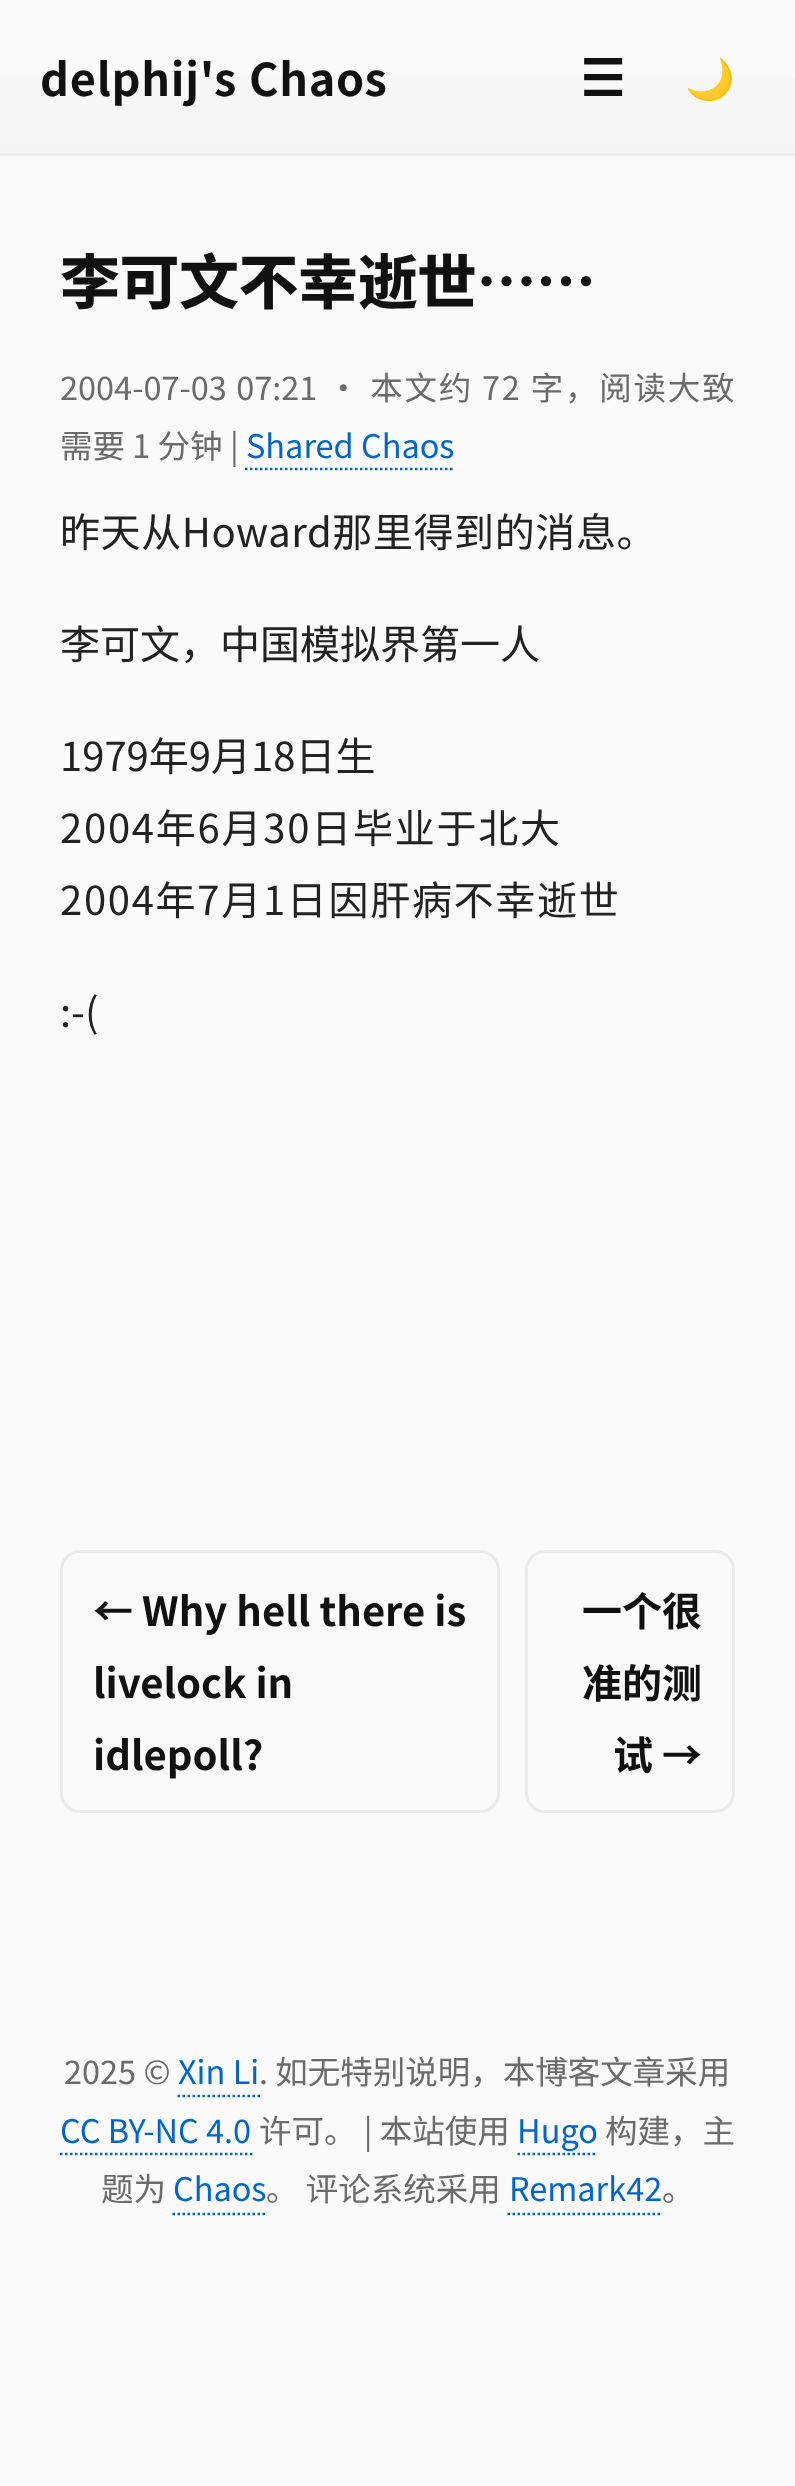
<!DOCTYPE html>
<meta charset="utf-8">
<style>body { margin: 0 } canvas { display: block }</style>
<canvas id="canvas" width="795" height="2486"></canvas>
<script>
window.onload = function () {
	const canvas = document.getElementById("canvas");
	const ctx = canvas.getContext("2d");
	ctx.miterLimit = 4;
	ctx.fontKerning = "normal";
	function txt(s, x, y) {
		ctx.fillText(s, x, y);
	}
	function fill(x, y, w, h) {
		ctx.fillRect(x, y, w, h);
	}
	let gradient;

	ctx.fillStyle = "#FAFAFA";
	fill(0, 0, 795, 2486);
	gradient = ctx.createLinearGradient(398, 0, 398, 153);
	gradient.addColorStop(0, "#FAFAFA");
	gradient.addColorStop(1, "#F5F5F5");
	ctx.fillStyle = gradient;
	fill(0, 77, 795, 76);
	ctx.fillStyle = "#EBEBEB";
	fill(0, 153, 795, 3);
	ctx.beginPath();
	ctx.moveTo(245, 469);
	ctx.lineTo(455, 469);
	ctx.strokeStyle = "#0066CC";
	ctx.lineWidth = 2.5;
	ctx.setLineDash([2.5, 2.5]);
	ctx.stroke();
	ctx.beginPath();
	ctx.roundRect(61.5, 1551.5, 437, 260, 18.5);
	ctx.strokeStyle = "#EBEBEB";
	ctx.lineWidth = 3;
	ctx.setLineDash([]);
	ctx.stroke();
	ctx.beginPath();
	ctx.roundRect(526.5, 1551.5, 207, 260, 18.5);
	ctx.stroke();
	ctx.beginPath();
	ctx.moveTo(177.5, 2096);
	ctx.lineTo(260, 2096);
	ctx.strokeStyle = "#0066CC";
	ctx.lineWidth = 2.5;
	ctx.setLineDash([2.5, 2.5]);
	ctx.stroke();
	ctx.beginPath();
	ctx.moveTo(60, 2154);
	ctx.lineTo(252.5, 2154);
	ctx.stroke();
	ctx.beginPath();
	ctx.moveTo(517.5, 2154);
	ctx.lineTo(597.5, 2154);
	ctx.stroke();
	ctx.beginPath();
	ctx.moveTo(172.5, 2214);
	ctx.lineTo(267.5, 2214);
	ctx.stroke();
	ctx.beginPath();
	ctx.moveTo(507.5, 2214);
	ctx.lineTo(662.5, 2214);
	ctx.stroke();
	ctx.letterSpacing = "0.75px";
	ctx.wordSpacing = "1px";
	ctx.font = "bold 45px Noto Sans SC";
	ctx.fillStyle = "#111111";
	txt("delphij's Chaos", 40, 96);
	ctx.letterSpacing = "0px";
	ctx.wordSpacing = "0px";
	ctx.font = "bold 50px DejaVu Sans";
	txt("☰", 580, 96);
	ctx.font = "bold 40px Noto Color Emoji";
	ctx.fillStyle = "#000000";
	txt("🌙", 685, 93);
	ctx.letterSpacing = "-0.5px";
	ctx.font = "800 60px Noto Sans SC";
	ctx.fillStyle = "#111111";
	txt("李可文不幸逝世……", 60, 304);
	ctx.letterSpacing = "0px";
	ctx.wordSpacing = "2px";
	ctx.font = "32.5px Noto Sans SC";
	ctx.fillStyle = "#6B6B6B";
	txt("2004-07-03 07:21", 60, 400);
	ctx.letterSpacing = "1.75px";
	ctx.wordSpacing = "0px";
	txt("• 本文约 72 字，阅读大致", 327, 400);
	ctx.letterSpacing = "0px";
	txt("需要 1 分钟 |", 60, 458);
	ctx.fillStyle = "#0066CC";
	txt("Shared Chaos", 246, 458);
	ctx.letterSpacing = "0.6px";
	ctx.font = "40px Noto Sans SC";
	ctx.fillStyle = "#222222";
	txt("昨天从Howard那里得到的消息。", 60, 547);
	ctx.letterSpacing = "0px";
	txt("李可文，中国模拟界第一人", 60, 659);
	txt("1979年9月18日生", 60, 771);
	ctx.letterSpacing = "1.75px";
	txt("2004年6月30日毕业于北大", 60, 843);
	ctx.letterSpacing = "1.7px";
	txt("2004年7月1日因肝病不幸逝世", 60, 915);
	ctx.letterSpacing = "0px";
	txt(":-(", 60, 1027);
	ctx.font = "bold 40px Noto Sans SC";
	ctx.fillStyle = "#111111";
	txt("← Why hell there is", 93, 1626);
	txt("livelock in", 93, 1698);
	txt("idlepoll?", 93, 1770);
	txt("一个很", 582, 1626);
	txt("准的测", 582, 1698);
	txt("试 →", 613, 1770);
	ctx.font = "32.5px Noto Sans SC";
	ctx.fillStyle = "#6B6B6B";
	txt("2025 ©", 64, 2084);
	ctx.fillStyle = "#0066CC";
	txt("Xin Li", 178, 2084);
	ctx.fillStyle = "#6B6B6B";
	txt(". 如无特别说明，本博客文章采用", 259, 2084);
	ctx.fillStyle = "#0066CC";
	txt("CC BY-NC 4.0", 60, 2143);
	ctx.fillStyle = "#6B6B6B";
	txt("许可。 | 本站使用", 259, 2143);
	ctx.fillStyle = "#0066CC";
	txt("Hugo", 517, 2143);
	ctx.fillStyle = "#6B6B6B";
	txt("构建，主", 605, 2143);
	txt("题为", 101, 2201);
	ctx.fillStyle = "#0066CC";
	txt("Chaos", 173, 2201);
	ctx.fillStyle = "#6B6B6B";
	txt("。 评论系统采用", 266, 2201);
	ctx.fillStyle = "#0066CC";
	txt("Remark42", 509, 2201);
	ctx.fillStyle = "#6B6B6B";
	txt("。", 662, 2201);
};
</script>
